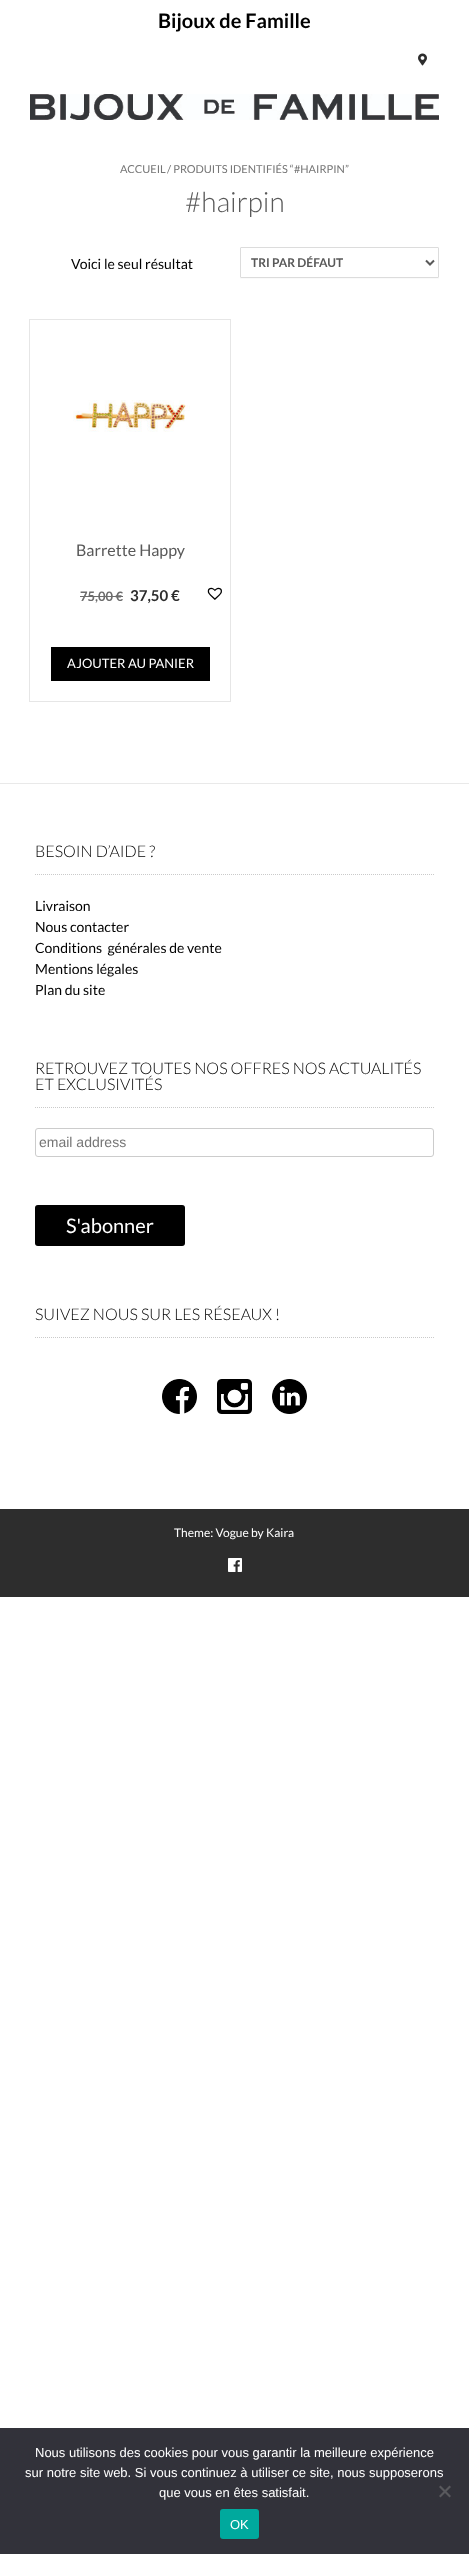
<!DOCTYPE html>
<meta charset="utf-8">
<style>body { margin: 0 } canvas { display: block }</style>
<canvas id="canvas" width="469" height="2554"></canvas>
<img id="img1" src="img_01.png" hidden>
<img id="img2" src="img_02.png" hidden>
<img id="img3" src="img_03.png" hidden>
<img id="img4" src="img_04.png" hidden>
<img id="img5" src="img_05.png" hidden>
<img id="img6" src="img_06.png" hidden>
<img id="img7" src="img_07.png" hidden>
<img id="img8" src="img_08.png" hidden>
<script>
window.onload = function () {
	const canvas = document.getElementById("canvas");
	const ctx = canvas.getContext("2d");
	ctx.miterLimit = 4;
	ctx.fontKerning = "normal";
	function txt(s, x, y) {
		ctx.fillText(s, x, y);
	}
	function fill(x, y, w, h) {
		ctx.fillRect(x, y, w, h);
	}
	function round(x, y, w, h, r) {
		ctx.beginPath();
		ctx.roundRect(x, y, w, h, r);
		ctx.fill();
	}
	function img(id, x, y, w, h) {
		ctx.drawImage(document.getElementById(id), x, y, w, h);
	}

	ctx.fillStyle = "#FFFFFF";
	fill(0, 0, 469, 2554);
	img("img1", 418, 53, 9, 13);
	img("img2", 30, 94, 409, 26);
	ctx.fillStyle = "#FAFAFA";
	ctx.beginPath();
	ctx.moveTo(240, 277);
	ctx.bezierCurveTo(240, 278, 240, 279, 241, 279);
	ctx.lineTo(439, 279);
	ctx.lineTo(439, 277);
	ctx.lineTo(438, 278);
	ctx.lineTo(241, 278);
	ctx.closePath();
	ctx.fill();
	ctx.beginPath();
	ctx.roundRect(240.5, 247.5, 198, 30, 0.5);
	ctx.strokeStyle = "#DCDCDC";
	ctx.stroke();
	ctx.beginPath();
	ctx.moveTo(426, 260.5);
	ctx.lineTo(430, 264.5);
	ctx.lineTo(434, 260.5);
	ctx.strokeStyle = "#595959";
	ctx.lineWidth = 2;
	ctx.stroke();
	ctx.strokeStyle = "#E6E6E6";
	ctx.lineWidth = 1;
	ctx.strokeRect(29.5, 319.5, 201, 382);
	img("img3", 73, 400, 117, 32);
	ctx.fillStyle = "#6C6C6C";
	fill(80, 596, 43, 1);
	img("img4", 207, 587, 15, 13);
	ctx.fillStyle = "#000000";
	fill(51, 647, 159, 34);
	ctx.fillStyle = "#E9E9E9";
	fill(0, 783, 469, 1);
	ctx.beginPath();
	ctx.moveTo(35, 874.5);
	ctx.lineTo(434, 874.5);
	ctx.strokeStyle = "#CACACA";
	ctx.setLineDash([1, 1]);
	ctx.stroke();
	ctx.beginPath();
	ctx.moveTo(35, 1107.5);
	ctx.lineTo(434, 1107.5);
	ctx.stroke();
	ctx.beginPath();
	ctx.roundRect(35.5, 1128.5, 398, 28, 2.5);
	ctx.strokeStyle = "#CCCCCC";
	ctx.setLineDash([]);
	ctx.stroke();
	ctx.fillStyle = "#000000";
	round(35, 1205, 150, 41, 3);
	ctx.beginPath();
	ctx.roundRect(35.5, 1205.5, 149, 40, 2.5);
	ctx.strokeStyle = "rgba(0, 0, 0, 0.14)";
	ctx.stroke();
	ctx.beginPath();
	ctx.moveTo(35, 1337.5);
	ctx.lineTo(434, 1337.5);
	ctx.strokeStyle = "#CACACA";
	ctx.setLineDash([1, 1]);
	ctx.stroke();
	img("img5", 162, 1379, 35, 35);
	img("img6", 217, 1379, 35, 35);
	img("img7", 272, 1379, 35, 35);
	ctx.fillStyle = "#2D2D2D";
	fill(0, 1509, 469, 88);
	img("img8", 228, 1558, 14, 14);
	ctx.fillStyle = "#32323A";
	fill(0, 2428, 469, 126);
	ctx.fillStyle = "#59595D";
	ctx.beginPath();
	ctx.moveTo(449.5, 2485.5);
	ctx.lineTo(451, 2487);
	ctx.lineTo(440.5, 2497.5);
	ctx.lineTo(439, 2496);
	ctx.closePath();
	ctx.fill();
	ctx.beginPath();
	ctx.moveTo(439, 2487);
	ctx.lineTo(440.5, 2485.5);
	ctx.lineTo(451, 2496);
	ctx.lineTo(449.5, 2497.5);
	ctx.closePath();
	ctx.fill();
	ctx.fillStyle = "#00A99D";
	round(220, 2509, 39, 30, 3);
	ctx.font = "bold 20px Lato";
	ctx.fillStyle = "#000000";
	txt("Bijoux de Famille", 158, 28);
	ctx.font = "11px Lato";
	ctx.fillStyle = "#757575";
	txt("ACCUEIL", 120, 173);
	txt("/ PRODUITS IDENTIFIÉS “#HAIRPIN”", 167, 173);
	ctx.font = "300 28px Lato";
	ctx.fillStyle = "#595959";
	txt("#hairpin", 185, 212);
	ctx.font = "14px Lato";
	ctx.fillStyle = "#000000";
	txt("Voici le seul résultat", 71, 269);
	ctx.font = "bold 12px Lato";
	ctx.fillStyle = "#595959";
	txt("TRI PAR DÉFAUT", 251, 267);
	ctx.font = "16px Lato";
	txt("Barrette Happy", 76, 556);
	ctx.font = "bold 13px Lato";
	ctx.fillStyle = "#6C6C6C";
	txt("75,00 €", 80, 601);
	ctx.font = "bold 15px Lato";
	ctx.fillStyle = "#2D2D2D";
	txt("37,50 €", 130, 601);
	ctx.font = "13px Lato";
	ctx.fillStyle = "#FFFFFF";
	txt("AJOUTER AU PANIER", 67, 668);
	ctx.font = "300 16px Lato";
	ctx.fillStyle = "#000000";
	txt("BESOIN D’AIDE ?", 35, 857);
	ctx.font = "14px Lato";
	txt("Livraison", 35, 911);
	txt("Nous contacter", 35, 932);
	txt("Conditions  générales de vente", 35, 953);
	txt("Mentions légales", 35, 974);
	txt("Plan du site", 35, 995);
	ctx.font = "300 16px Lato";
	txt("RETROUVEZ TOUTES NOS OFFRES NOS ACTUALITÉS", 35, 1074);
	txt("ET EXCLUSIVITÉS", 35, 1090);
	ctx.font = "14px Liberation Sans";
	ctx.fillStyle = "#757575";
	txt("email address", 39, 1147);
	ctx.font = "20px Lato";
	ctx.fillStyle = "#FFFFFF";
	txt("S'abonner", 66, 1233);
	ctx.font = "300 16px Lato";
	ctx.fillStyle = "#000000";
	txt("SUIVEZ NOUS SUR LES RÉSEAUX !", 35, 1320);
	ctx.font = "12px Lato";
	ctx.fillStyle = "#FFFFFF";
	txt("Theme: Vogue by Kaira", 174, 1537);
	ctx.font = "13px Liberation Sans";
	txt("Nous utilisons des cookies pour vous garantir la meilleure expérience", 35, 2457);
	txt("sur notre site web. Si vous continuez à utiliser ce site, nous supposerons", 25, 2477);
	txt("que vous en êtes satisfait.", 159, 2497);
	txt("OK", 230, 2529);
};
</script>
